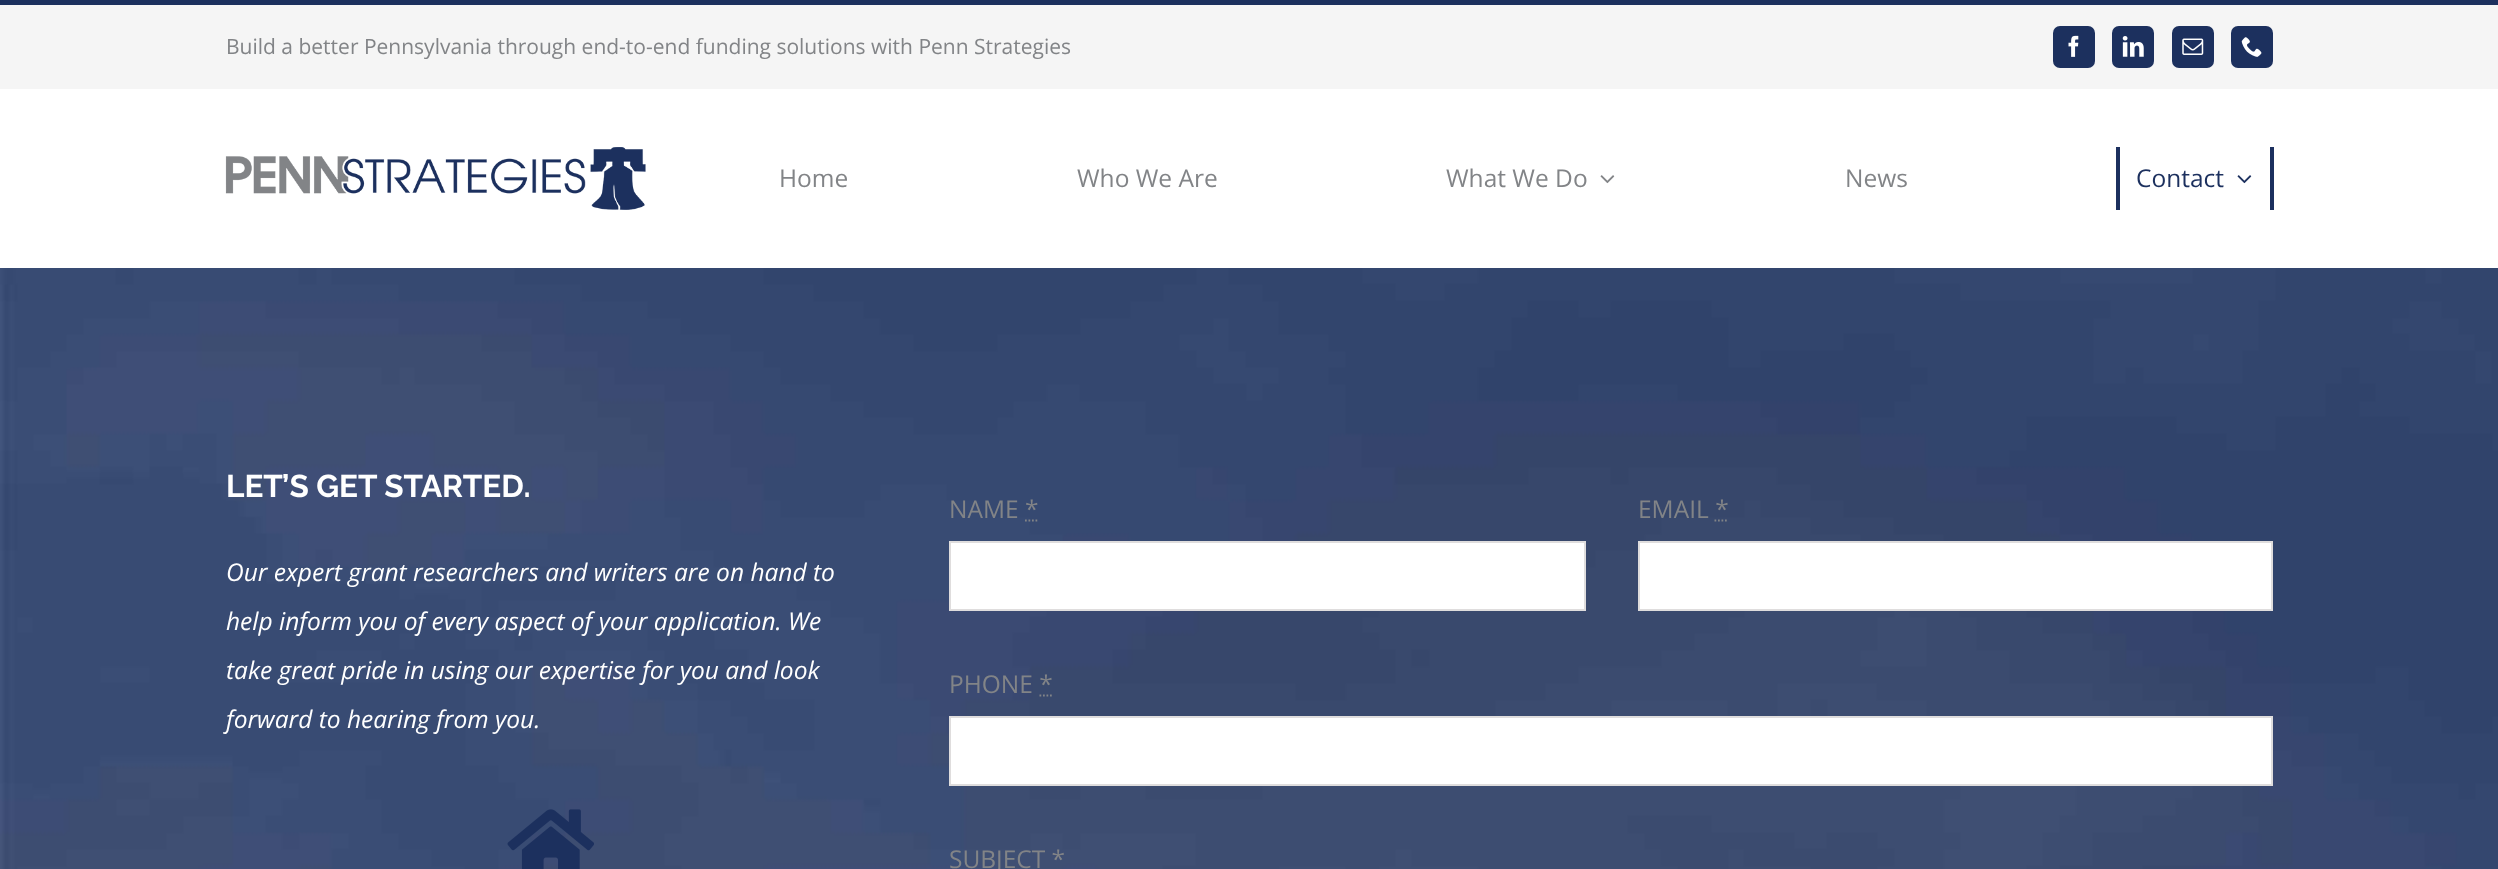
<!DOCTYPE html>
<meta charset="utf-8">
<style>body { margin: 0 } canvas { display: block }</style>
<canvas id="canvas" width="2498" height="869"></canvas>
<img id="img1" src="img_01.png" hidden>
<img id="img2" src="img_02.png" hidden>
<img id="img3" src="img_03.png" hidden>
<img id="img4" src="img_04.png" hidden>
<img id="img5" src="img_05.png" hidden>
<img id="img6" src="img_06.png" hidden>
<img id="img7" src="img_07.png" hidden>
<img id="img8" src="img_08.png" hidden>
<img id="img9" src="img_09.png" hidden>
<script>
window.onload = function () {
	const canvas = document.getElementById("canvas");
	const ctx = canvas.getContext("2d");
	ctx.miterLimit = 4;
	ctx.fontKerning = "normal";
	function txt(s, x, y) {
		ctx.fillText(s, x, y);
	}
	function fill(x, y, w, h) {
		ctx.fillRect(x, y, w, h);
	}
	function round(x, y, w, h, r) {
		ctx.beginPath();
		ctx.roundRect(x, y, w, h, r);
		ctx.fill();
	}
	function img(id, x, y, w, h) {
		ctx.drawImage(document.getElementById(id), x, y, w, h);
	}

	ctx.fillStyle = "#F5F5F5";
	fill(0, 0, 2498, 869);
	ctx.fillStyle = "#1C305E";
	fill(0, 0, 2498, 5);
	round(2053, 26, 42, 42, 7);
	img("img1", 2068, 35, 11, 22);
	round(2112, 26, 42, 42, 7);
	img("img2", 2122, 36, 22, 21);
	round(2172, 26, 42, 42, 7);
	img("img3", 2182, 38, 22, 17);
	round(2231, 26, 42, 42, 7);
	img("img4", 2241, 37, 21, 20);
	ctx.fillStyle = "#FFFFFF";
	fill(0, 89, 2498, 179);
	img("img5", 225, 147, 421, 63);
	img("img6", 1600, 175, 15, 9);
	ctx.fillStyle = "#1C305E";
	fill(2270, 147, 4, 63);
	fill(2116, 147, 4, 63);
	img("img7", 2237, 175, 15, 9);
	img("img8", 0, 268, 2498, 601);
	img("img9", 507, 809, 87, 60);
	ctx.beginPath();
	ctx.moveTo(1025, 520.5);
	ctx.lineTo(1038.5, 520.5);
	ctx.strokeStyle = "#828487";
	ctx.lineWidth = 1.8;
	ctx.setLineDash([1.75, 1.75]);
	ctx.stroke();
	ctx.fillStyle = "#FFFFFF";
	ctx.beginPath();
	ctx.rect(950, 542, 635, 68);
	ctx.fill();
	ctx.strokeStyle = "#DFDDDD";
	ctx.lineWidth = 2;
	ctx.setLineDash([]);
	ctx.stroke();
	ctx.beginPath();
	ctx.moveTo(1714.5, 520.5);
	ctx.lineTo(1728, 520.5);
	ctx.strokeStyle = "#828487";
	ctx.lineWidth = 1.8;
	ctx.setLineDash([1.75, 1.75]);
	ctx.stroke();
	ctx.beginPath();
	ctx.rect(1639, 542, 633, 68);
	ctx.fill();
	ctx.strokeStyle = "#DFDDDD";
	ctx.lineWidth = 2;
	ctx.setLineDash([]);
	ctx.stroke();
	ctx.beginPath();
	ctx.moveTo(1039.5, 695.5);
	ctx.lineTo(1053, 695.5);
	ctx.strokeStyle = "#828487";
	ctx.lineWidth = 1.8;
	ctx.setLineDash([1.75, 1.75]);
	ctx.stroke();
	ctx.beginPath();
	ctx.rect(950, 717, 1322, 68);
	ctx.fill();
	ctx.strokeStyle = "#DFDDDD";
	ctx.lineWidth = 2;
	ctx.setLineDash([]);
	ctx.stroke();
	ctx.font = "21px Open Sans";
	ctx.fillStyle = "#828487";
	txt("Build a better Pennsylvania through end-to-end funding solutions with Penn Strategies", 226, 54);
	ctx.font = "24.5px Open Sans";
	txt("Home", 779, 187);
	txt("Who We Are", 1077, 187);
	txt("What We Do", 1446, 187);
	txt("News", 1845, 187);
	ctx.fillStyle = "#1C305E";
	txt("Contact", 2136, 187);
	ctx.font = "100 31.5px Raleway";
	ctx.fillStyle = "#FFFFFF";
	txt("LET’S GET STARTED.", 226, 497);
	ctx.font = "italic 24.5px Open Sans";
	txt("Our expert grant researchers and writers are on hand to", 226, 581);
	txt("help inform you of every aspect of your application. We", 226, 630);
	txt("take great pride in using our expertise for you and look", 226, 679);
	txt("forward to hearing from you.", 226, 728);
	ctx.font = "24.5px Open Sans";
	ctx.fillStyle = "#828487";
	txt("NAME *", 949, 518);
	txt("EMAIL *", 1638, 518);
	txt("PHONE *", 949, 693);
	txt("SUBJECT *", 949, 868);
};
</script>
